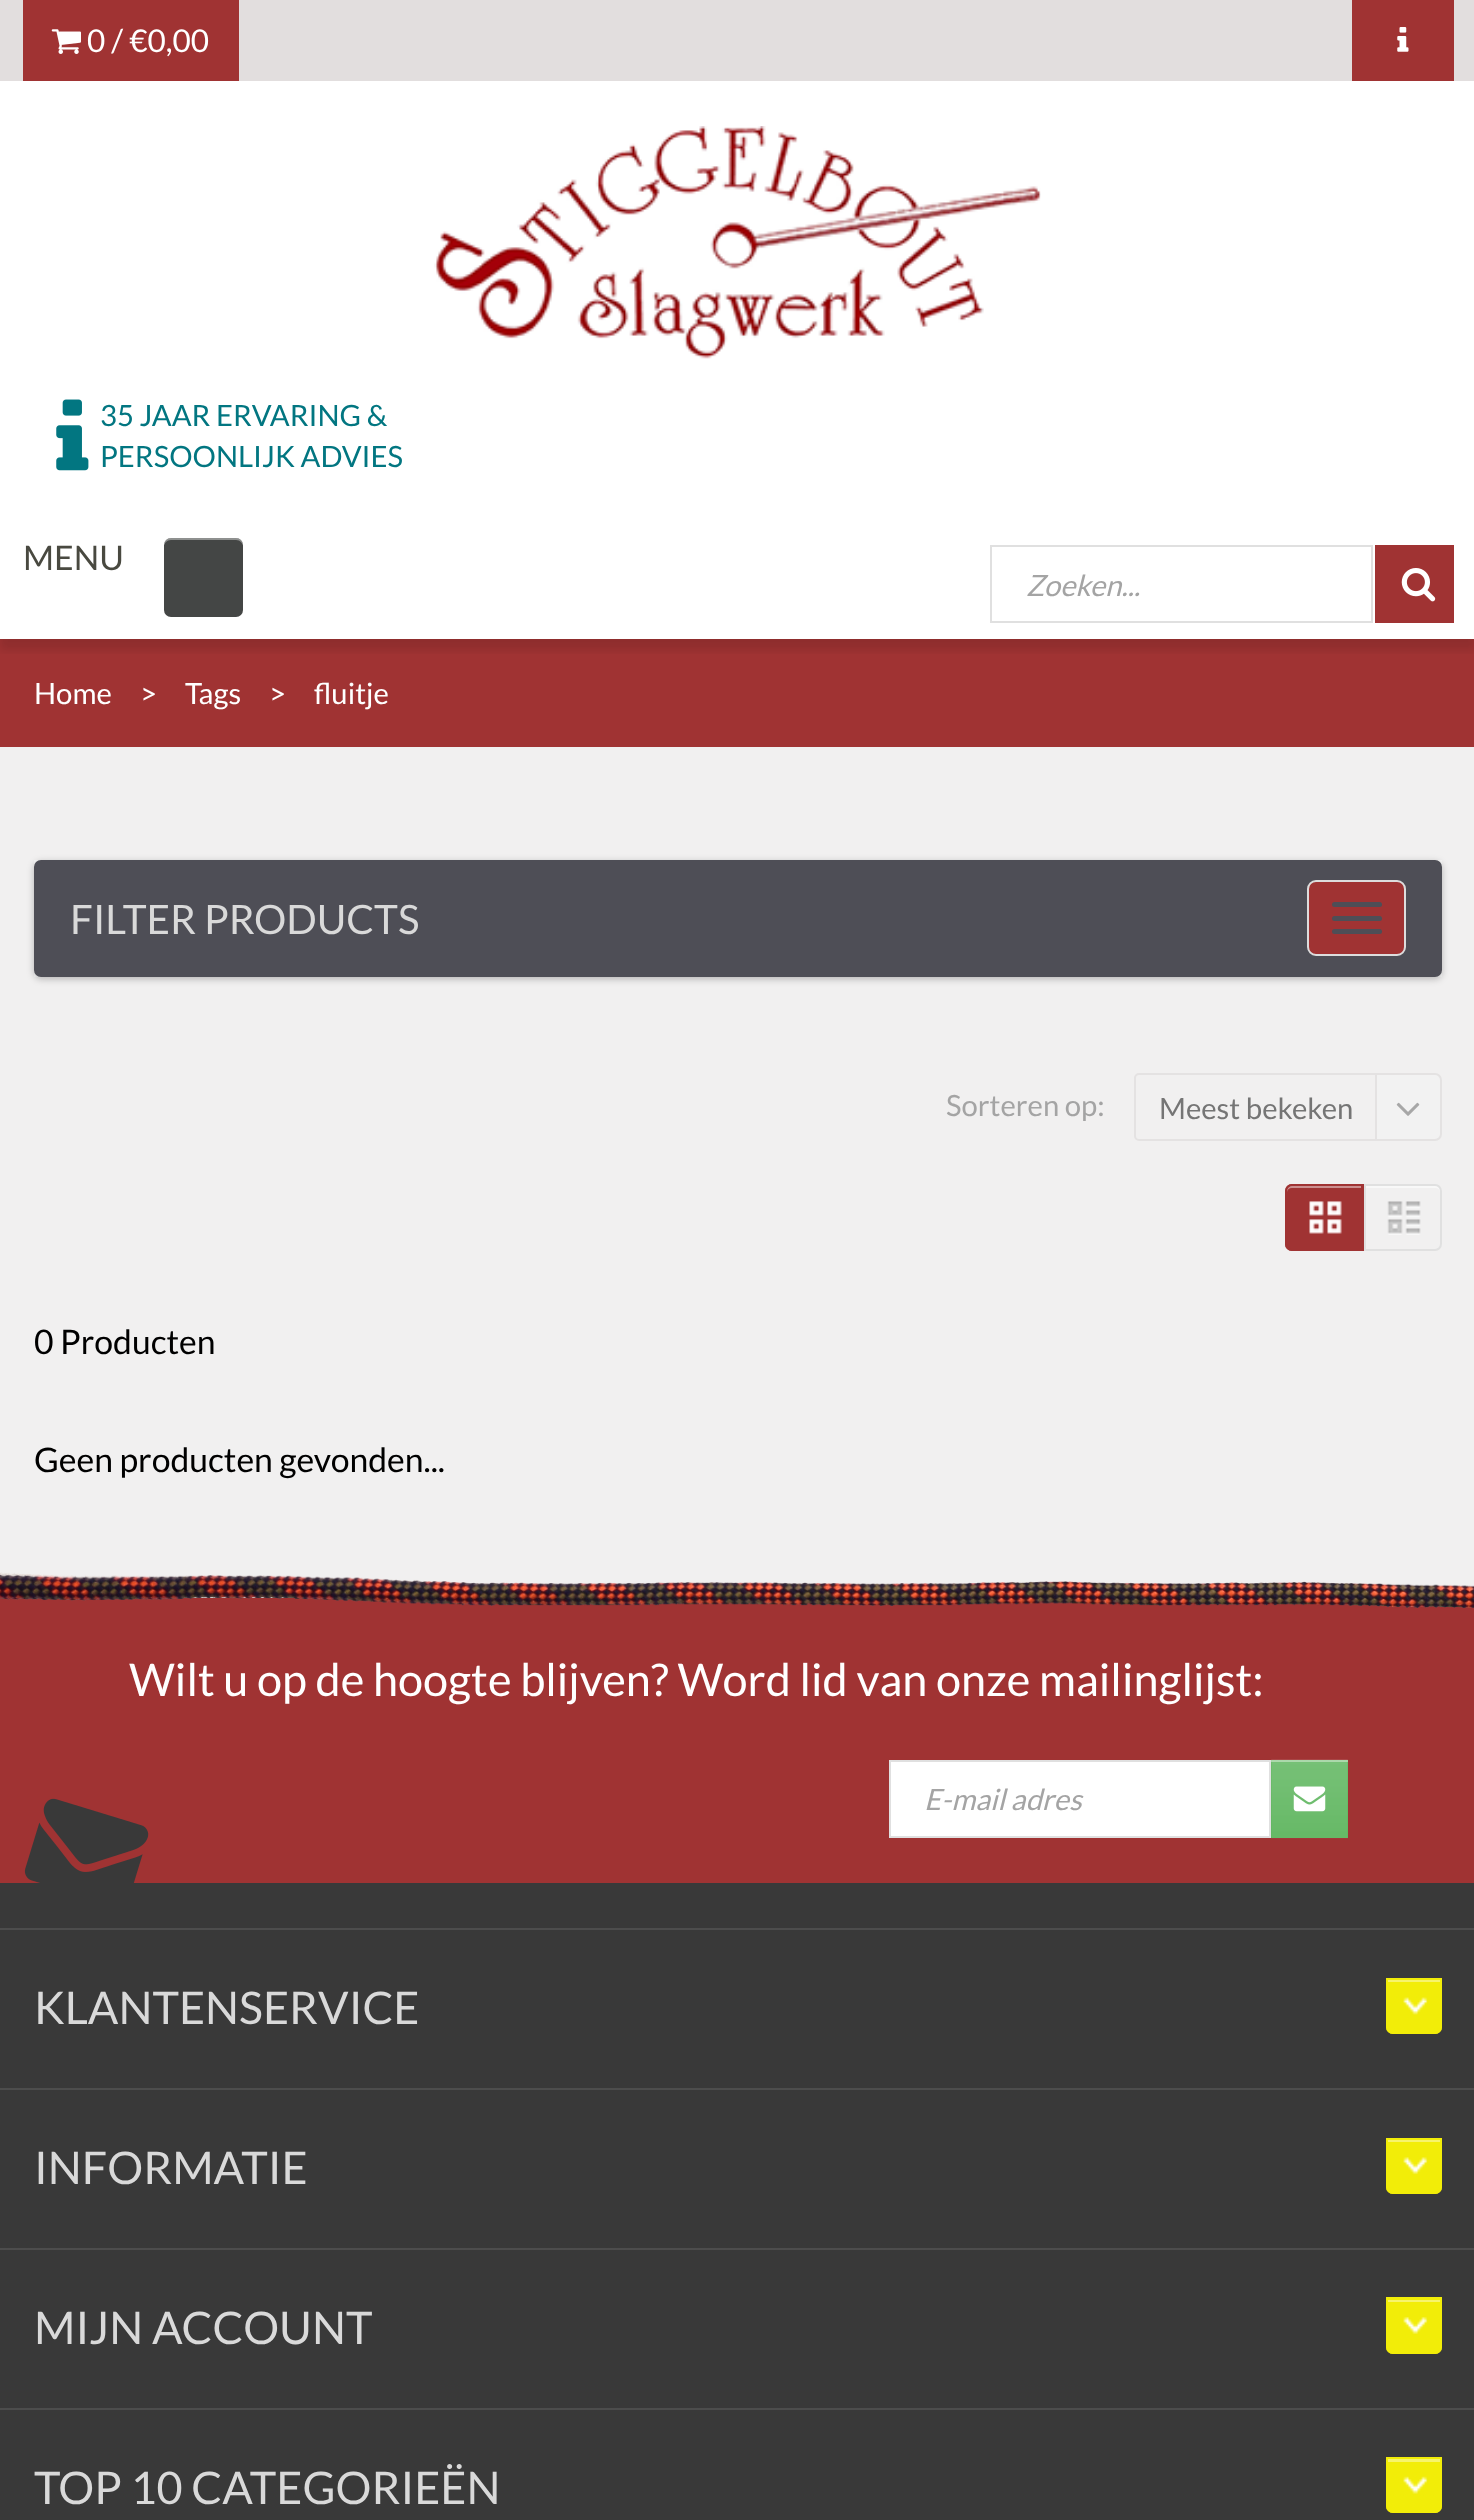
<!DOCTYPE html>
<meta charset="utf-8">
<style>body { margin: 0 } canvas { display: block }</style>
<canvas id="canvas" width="1474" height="2520"></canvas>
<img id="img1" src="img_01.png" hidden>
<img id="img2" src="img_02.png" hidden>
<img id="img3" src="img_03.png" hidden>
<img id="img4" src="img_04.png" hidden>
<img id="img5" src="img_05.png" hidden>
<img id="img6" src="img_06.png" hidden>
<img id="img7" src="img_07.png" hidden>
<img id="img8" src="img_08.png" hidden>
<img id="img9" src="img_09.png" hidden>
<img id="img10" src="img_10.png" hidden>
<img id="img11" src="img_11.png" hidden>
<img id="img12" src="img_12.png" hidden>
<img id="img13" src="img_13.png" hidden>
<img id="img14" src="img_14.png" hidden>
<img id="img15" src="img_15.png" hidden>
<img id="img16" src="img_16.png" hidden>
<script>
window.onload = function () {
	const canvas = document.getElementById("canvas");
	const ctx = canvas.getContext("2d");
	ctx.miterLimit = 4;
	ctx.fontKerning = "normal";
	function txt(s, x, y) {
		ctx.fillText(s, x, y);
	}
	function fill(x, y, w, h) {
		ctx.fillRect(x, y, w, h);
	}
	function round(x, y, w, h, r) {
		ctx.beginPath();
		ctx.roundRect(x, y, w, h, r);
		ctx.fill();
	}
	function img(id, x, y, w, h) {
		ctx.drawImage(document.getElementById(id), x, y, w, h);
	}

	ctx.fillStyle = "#F1F0F0";
	fill(0, 0, 1474, 2520);
	ctx.fillStyle = "#E2DEDE";
	fill(0, 0, 1474, 81);
	ctx.fillStyle = "#A03333";
	fill(23, 0, 216, 81);
	img("img1", 51, 29, 30, 25);
	fill(1352, 0, 102, 81);
	img("img2", 1397, 27, 12, 25);
	ctx.fillStyle = "#FFFFFF";
	fill(0, 81, 1474, 558);
	img("img3", 434, 126, 607, 233);
	img("img4", 56, 399, 33, 72);
	ctx.fillStyle = "#A03333";
	fill(0, 639, 1474, 108);
	ctx.save();
	ctx.beginPath();
	ctx.rect(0, 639, 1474, 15);
	ctx.clip();
	ctx.fillStyle = "rgba(0, 0, 0, 0.1)";
	ctx.filter = "blur(4.5px)";
	ctx.beginPath();
	ctx.rect(0, 540, 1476, 110);
	ctx.fill();
	ctx.filter = "none";
	ctx.restore();
	ctx.fillStyle = "#444645";
	round(164, 538, 79, 79, 7);
	ctx.fillStyle = "rgba(255, 255, 255, 0.4)";
	ctx.beginPath();
	ctx.moveTo(171, 540);
	ctx.lineTo(236, 540);
	ctx.bezierCurveTo(240, 540, 243, 543, 243, 547);
	ctx.bezierCurveTo(243, 536, 234, 538, 225, 538);
	ctx.lineTo(182, 538);
	ctx.bezierCurveTo(173, 538, 164, 536, 164, 547);
	ctx.bezierCurveTo(164, 543, 167, 540, 171, 540);
	ctx.closePath();
	ctx.fill();
	ctx.strokeStyle = "#E0E0E0";
	ctx.lineWidth = 2;
	ctx.strokeRect(991, 546, 381, 76);
	ctx.fillStyle = "#A03333";
	fill(1375, 545, 79, 78);
	img("img5", 1401, 568, 35, 34);
	ctx.fillStyle = "#F8F8F8";
	fill(34, 860, 1408, 117);
	ctx.fillStyle = "rgba(0, 0, 0, 0.25)";
	ctx.filter = "blur(3.5px)";
	ctx.beginPath();
	ctx.roundRect(34, 862, 1408, 117, 7);
	ctx.fill();
	ctx.filter = "none";
	ctx.fillStyle = "#4E4E56";
	ctx.beginPath();
	ctx.roundRect(35, 861, 1406, 115, 6);
	ctx.fill();
	ctx.strokeStyle = "#4E4E56";
	ctx.stroke();
	ctx.fillStyle = "#A03333";
	ctx.beginPath();
	ctx.roundRect(1308, 881, 97, 74, 8);
	ctx.fill();
	ctx.strokeStyle = "#DDDDDD";
	ctx.stroke();
	ctx.fillStyle = "#4E4E56";
	round(1332, 902, 50, 5, 2.5);
	round(1332, 916, 50, 5, 2.5);
	round(1332, 929, 50, 5, 2.5);
	ctx.beginPath();
	ctx.roundRect(1135, 1074, 241, 66, [4, 0, 0, 4]);
	ctx.strokeStyle = "#E4E2E2";
	ctx.stroke();
	ctx.fillStyle = "#F2F2F2";
	ctx.beginPath();
	ctx.roundRect(1376, 1074, 65, 66, [0, 6, 6, 0]);
	ctx.fill();
	ctx.stroke();
	img("img6", 1396, 1102, 24, 14);
	ctx.fillStyle = "#A03333";
	ctx.beginPath();
	ctx.roundRect(1285, 1184, 79, 67, [7, 0, 0, 7]);
	ctx.fill();
	img("img7", 1309, 1201, 33, 33);
	ctx.fillStyle = "#CB8F8F";
	ctx.beginPath();
	ctx.moveTo(1292, 1188);
	ctx.lineTo(1361, 1188);
	ctx.lineTo(1361, 1186);
	ctx.lineTo(1292, 1186);
	ctx.bezierCurveTo(1289, 1186, 1287, 1188, 1287, 1191);
	ctx.lineTo(1287, 1192);
	ctx.bezierCurveTo(1287, 1190, 1289, 1188, 1292, 1188);
	ctx.closePath();
	ctx.fill();
	ctx.beginPath();
	ctx.roundRect(1286, 1185, 77, 65, [6, 0, 0, 6]);
	ctx.strokeStyle = "#A03333";
	ctx.stroke();
	img("img8", 1387, 1201, 34, 34);
	ctx.fillStyle = "#F8F8F8";
	ctx.beginPath();
	ctx.moveTo(1366, 1188);
	ctx.lineTo(1436, 1188);
	ctx.bezierCurveTo(1438, 1188, 1440, 1190, 1440, 1192);
	ctx.lineTo(1440, 1191);
	ctx.bezierCurveTo(1440, 1188, 1438, 1186, 1435, 1186);
	ctx.lineTo(1366, 1186);
	ctx.closePath();
	ctx.fill();
	ctx.beginPath();
	ctx.roundRect(1365, 1185, 76, 65, [0, 6, 6, 0]);
	ctx.strokeStyle = "#E0E0E0";
	ctx.stroke();
	ctx.fillStyle = "#393939";
	fill(0, 1883, 1474, 637);
	ctx.fillStyle = "#A03333";
	fill(0, 1598, 1474, 285);
	img("img9", 0, 1572, 1474, 36);
	ctx.fillStyle = "#FFFFFF";
	ctx.beginPath();
	ctx.rect(890, 1761, 380, 76);
	ctx.fill();
	ctx.stroke();
	ctx.fillStyle = "#54B154";
	fill(1271, 1760, 77, 78);
	img("img10", 1271, 1759, 77, 80);
	ctx.fillStyle = "rgba(255, 255, 255, 0.4)";
	fill(1271, 1760, 77, 2);
	img("img11", 1293, 1786, 33, 26);
	img("img12", 24, 1798, 125, 85);
	ctx.fillStyle = "#4D4D4D";
	fill(0, 1928, 1474, 2);
	ctx.fillStyle = "#F2ED08";
	ctx.beginPath();
	ctx.roundRect(1386, 1978, 56, 56, [0, 0, 7, 7]);
	ctx.fill();
	img("img13", 1403, 1997, 25, 18);
	ctx.fillStyle = "#F7F46B";
	fill(1388, 1980, 52, 2);
	ctx.beginPath();
	ctx.roundRect(1387, 1979, 54, 54, [0, 0, 6, 6]);
	ctx.strokeStyle = "#F2ED08";
	ctx.stroke();
	ctx.fillStyle = "#4D4D4D";
	fill(0, 2088, 1474, 2);
	ctx.fillStyle = "#F2ED08";
	ctx.beginPath();
	ctx.roundRect(1386, 2138, 56, 56, [0, 0, 7, 7]);
	ctx.fill();
	img("img14", 1403, 2157, 25, 18);
	ctx.fillStyle = "#F7F46B";
	fill(1388, 2140, 52, 2);
	ctx.beginPath();
	ctx.roundRect(1387, 2139, 54, 54, [0, 0, 6, 6]);
	ctx.stroke();
	ctx.fillStyle = "#4D4D4D";
	fill(0, 2248, 1474, 2);
	ctx.fillStyle = "#F2ED08";
	ctx.beginPath();
	ctx.roundRect(1386, 2297, 56, 57, [0, 0, 7, 7]);
	ctx.fill();
	img("img15", 1403, 2317, 25, 17);
	ctx.fillStyle = "#F7F46B";
	fill(1388, 2300, 52, 2);
	ctx.beginPath();
	ctx.roundRect(1387, 2298, 54, 55, [0, 0, 6, 6]);
	ctx.stroke();
	ctx.fillStyle = "#4D4D4D";
	fill(0, 2408, 1474, 2);
	ctx.fillStyle = "#F2ED08";
	ctx.beginPath();
	ctx.roundRect(1386, 2457, 56, 56, [0, 0, 7, 7]);
	ctx.fill();
	img("img16", 1403, 2476, 25, 18);
	ctx.fillStyle = "#F7F46B";
	fill(1388, 2459, 52, 3);
	ctx.beginPath();
	ctx.roundRect(1387, 2458, 54, 54, [0, 0, 6, 6]);
	ctx.stroke();
	ctx.font = "31.5px Lato";
	ctx.fillStyle = "#FFFFFF";
	txt("0 / €0,00", 87, 52);
	ctx.font = "29.25px Lato";
	ctx.fillStyle = "#027681";
	txt("35 JAAR ERVARING &", 100, 426);
	txt("PERSOONLIJK ADVIES", 100, 467);
	ctx.font = "33.75px Lato";
	ctx.fillStyle = "#494940";
	txt("MENU", 23, 570);
	ctx.font = "italic 29.25px Lato";
	ctx.fillStyle = "#A4A4A4";
	txt("Zoeken...", 1026, 596);
	ctx.font = "29.25px Lato";
	ctx.fillStyle = "#FFFFFF";
	txt("Home", 34, 704);
	txt(">", 140, 704);
	txt("Tags", 185, 704);
	txt(">", 269, 704);
	txt("fluitje", 314, 704);
	ctx.font = "40.5px Lato";
	ctx.fillStyle = "#D9D9D9";
	txt("FILTER PRODUCTS", 70, 934);
	ctx.font = "29.25px Lato";
	ctx.fillStyle = "#A4A4A4";
	txt("Sorteren op:", 946, 1116);
	ctx.fillStyle = "#757575";
	txt("Meest bekeken", 1159, 1119);
	ctx.font = "33.75px Lato";
	ctx.fillStyle = "#000000";
	txt("0 Producten", 34, 1354);
	txt("Geen producten gevonden...", 34, 1472);
	ctx.font = "45px Lato";
	ctx.fillStyle = "#FFFFFF";
	txt("Wilt u op de hoogte blijven? Word lid van onze mailinglijst:", 129, 1696);
	ctx.font = "italic 29.25px Lato";
	ctx.fillStyle = "#A4A4A4";
	txt("E-mail adres", 924, 1810);
	ctx.font = "45px Lato";
	ctx.fillStyle = "#D9D9D9";
	txt("KLANTENSERVICE", 34, 2024);
	txt("INFORMATIE", 34, 2184);
	txt("MIJN ACCOUNT", 34, 2344);
	txt("TOP 10 CATEGORIEËN", 34, 2504);
};
</script>
